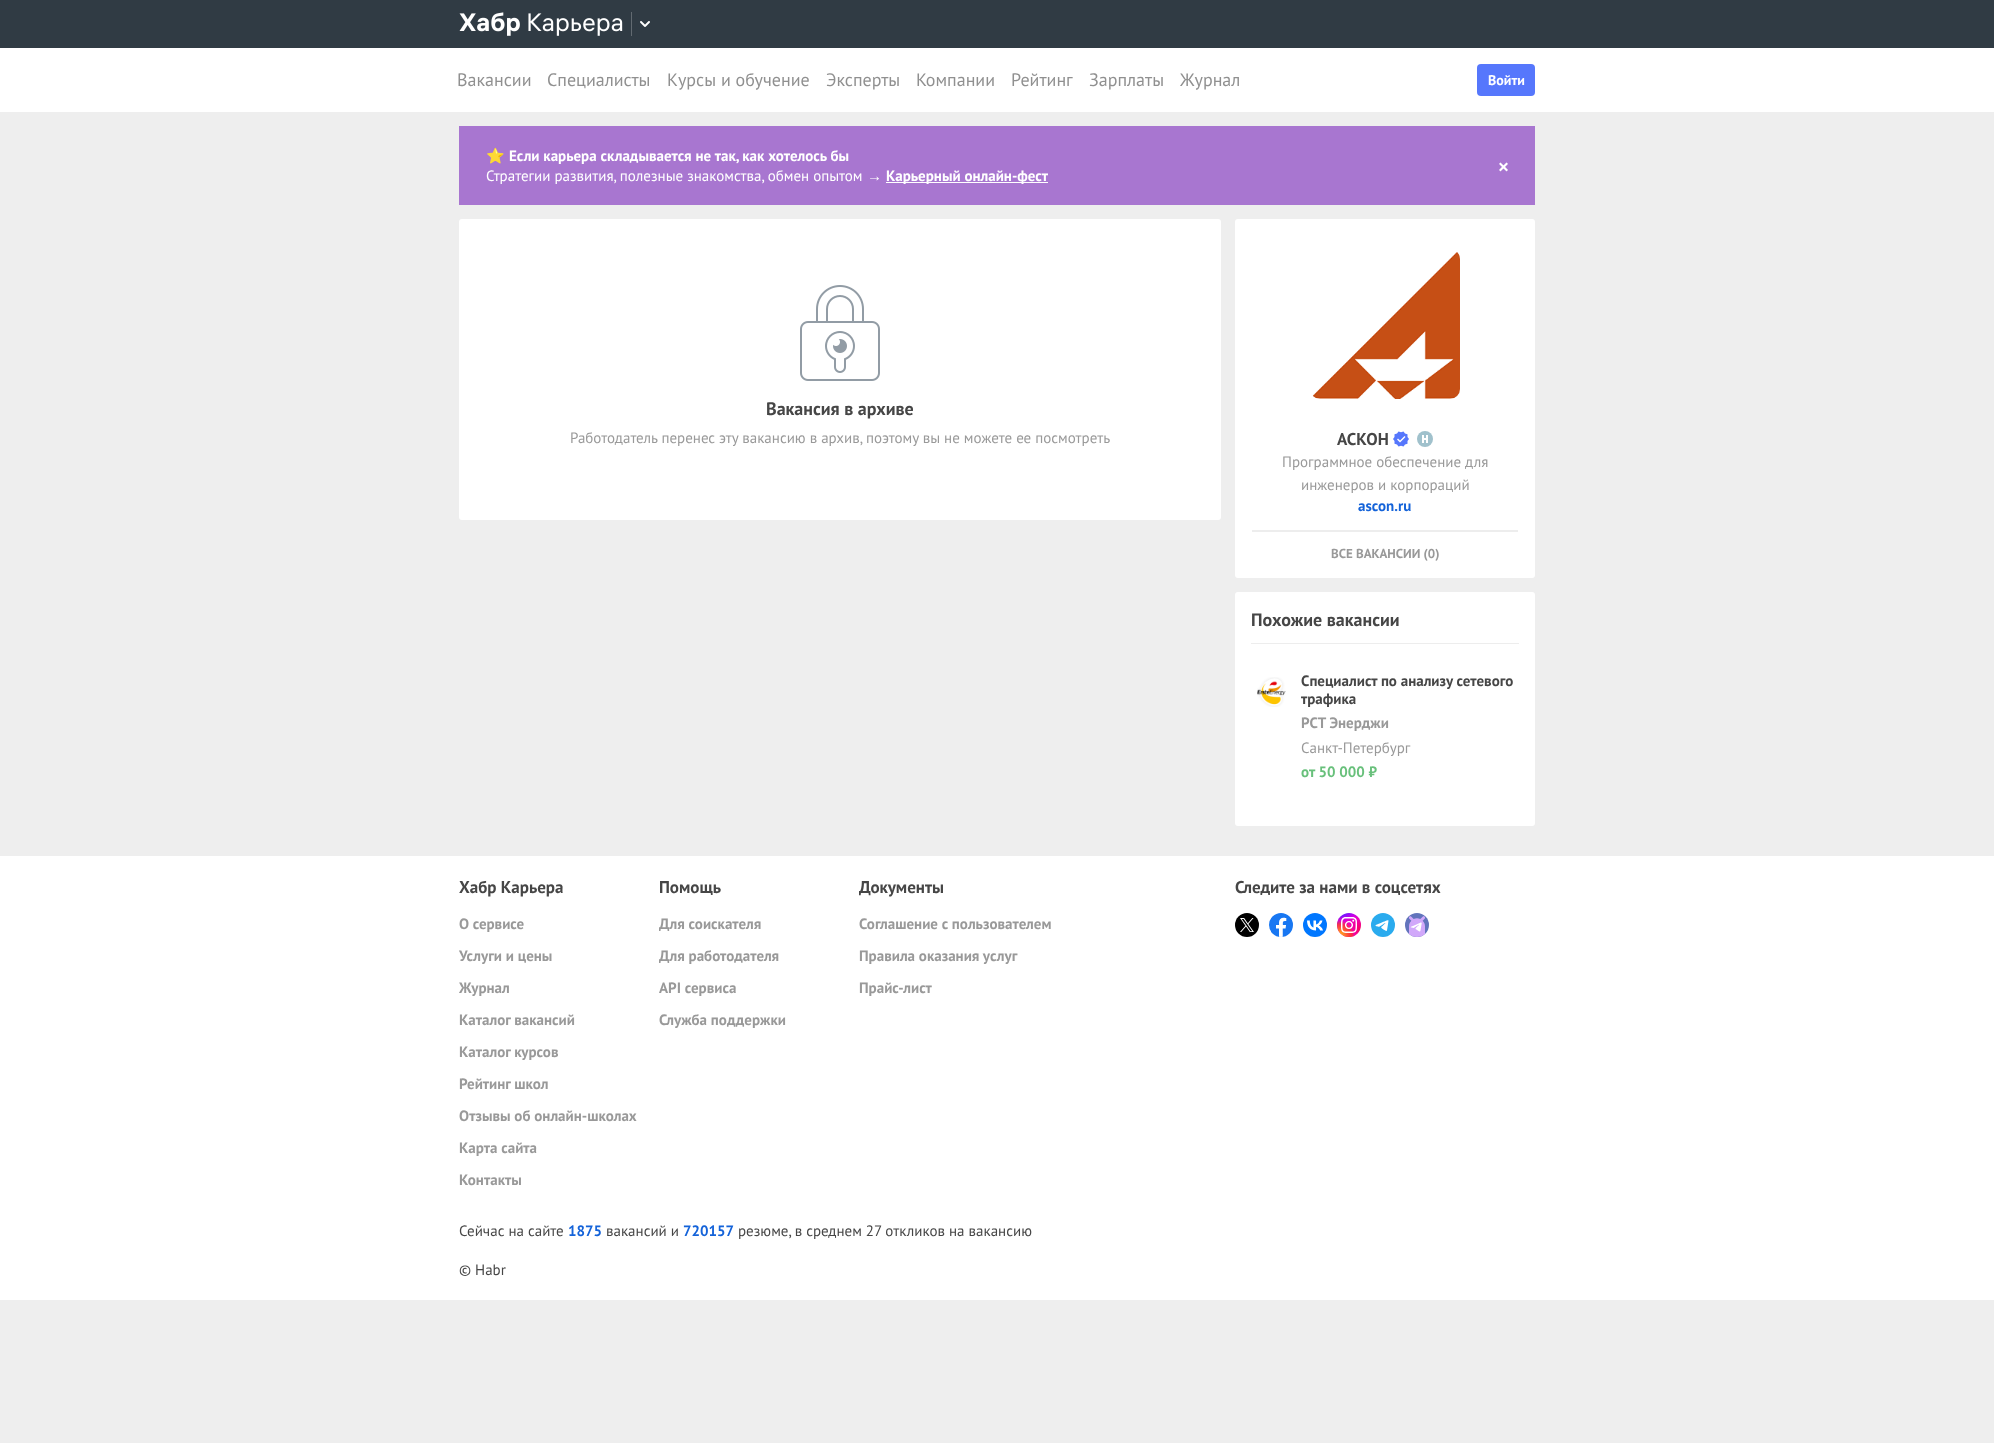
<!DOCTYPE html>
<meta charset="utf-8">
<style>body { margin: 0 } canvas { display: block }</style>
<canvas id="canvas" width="1994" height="1443"></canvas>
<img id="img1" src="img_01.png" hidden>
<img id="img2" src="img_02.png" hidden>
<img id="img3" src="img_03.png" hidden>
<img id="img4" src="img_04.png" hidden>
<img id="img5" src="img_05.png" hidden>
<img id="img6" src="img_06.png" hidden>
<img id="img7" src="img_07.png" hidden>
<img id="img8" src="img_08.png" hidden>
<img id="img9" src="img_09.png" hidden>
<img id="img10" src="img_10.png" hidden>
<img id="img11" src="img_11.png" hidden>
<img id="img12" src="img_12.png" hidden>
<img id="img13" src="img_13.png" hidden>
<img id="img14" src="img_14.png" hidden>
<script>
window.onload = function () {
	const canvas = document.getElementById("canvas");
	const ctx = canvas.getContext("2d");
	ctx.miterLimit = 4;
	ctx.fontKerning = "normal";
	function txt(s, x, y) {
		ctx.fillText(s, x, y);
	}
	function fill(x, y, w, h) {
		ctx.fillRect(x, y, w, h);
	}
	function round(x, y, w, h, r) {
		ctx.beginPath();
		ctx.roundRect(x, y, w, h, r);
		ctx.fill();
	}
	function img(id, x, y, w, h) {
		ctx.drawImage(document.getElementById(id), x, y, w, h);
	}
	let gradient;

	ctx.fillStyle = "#EEEEEE";
	fill(0, 0, 1994, 1443);
	ctx.fillStyle = "#303B44";
	fill(0, 0, 1994, 48);
	img("img1", 459, 12, 164, 24);
	ctx.fillStyle = "#626A71";
	fill(631, 12, 1, 24);
	img("img2", 640, 21, 10, 6);
	ctx.fillStyle = "#FFFFFF";
	fill(0, 48, 1994, 64);
	ctx.fillStyle = "#5677FC";
	round(1477, 64, 58, 32, 4);
	ctx.fillStyle = "#A876D0";
	fill(459, 126, 1076, 79);
	ctx.fillStyle = "#FFFFFF";
	fill(886, 182, 162, 1);
	img("img3", 1499, 162, 9, 10);
	round(459, 219, 762, 301, 3);
	img("img4", 800, 285, 80, 96);
	round(1235, 219, 300, 359, 3);
	img("img5", 1312, 252, 148, 147);
	img("img6", 1393, 431, 16, 16);
	ctx.fillStyle = "#A0C1CC";
	ctx.beginPath();
	ctx.arc(1425, 439, 8, 0, Math.PI * 2);
	ctx.fill();
	img("img7", 1422, 435, 6, 8);
	ctx.fillStyle = "#EDEDED";
	fill(1252, 530, 266, 2);
	ctx.fillStyle = "#FFFFFF";
	round(1235, 592, 300, 234, 3);
	ctx.fillStyle = "#EDEDED";
	fill(1251, 643, 268, 1);
	img("img8", 1257, 677, 29, 30);
	ctx.fillStyle = "#FFFFFF";
	fill(0, 856, 1994, 444);
	img("img9", 1235, 913, 24, 24);
	img("img10", 1269, 913, 24, 24);
	img("img11", 1303, 913, 24, 24);
	gradient = ctx.createRadialGradient(1366, 948, 0, 1366, 948, 45);
	gradient.addColorStop(0.24, "#FF1B90");
	gradient.addColorStop(0.44, "#F80261");
	gradient.addColorStop(0.69, "#ED00C0");
	gradient.addColorStop(0.78, "#C500E9");
	gradient.addColorStop(0.89, "#7017FF");
	ctx.fillStyle = gradient;
	ctx.beginPath();
	ctx.arc(1349, 925, 12, 0, Math.PI * 2);
	ctx.fill();
	gradient = ctx.createRadialGradient(1339, 936, 0, 1339, 936, 21);
	gradient.addColorStop(0, "#FFD600");
	gradient.addColorStop(0.32, "#FF6930");
	gradient.addColorStop(0.54, "rgba(254, 59, 54, 0.88)");
	gradient.addColorStop(0.62, "rgba(254, 59, 54, 0.63)");
	gradient.addColorStop(0.74, "rgba(237, 0, 192, 0.7)");
	gradient.addColorStop(1, "rgba(237, 0, 192, 0)");
	ctx.fillStyle = gradient;
	ctx.beginPath();
	ctx.arc(1349, 925, 12, 0, Math.PI * 2);
	ctx.fill();
	img("img12", 1341, 917, 16, 16);
	img("img13", 1371, 913, 24, 24);
	img("img14", 1405, 913, 24, 24);
	ctx.font = "18px PT Sans";
	ctx.fillStyle = "#909090";
	txt("Вакансии", 457, 86);
	txt("Специалисты", 547, 86);
	txt("Курсы и обучение", 667, 86);
	txt("Эксперты", 826, 86);
	txt("Компании", 916, 86);
	txt("Рейтинг", 1011, 86);
	txt("Зарплаты", 1089, 86);
	txt("Журнал", 1180, 86);
	ctx.font = "bold 14px PT Sans";
	ctx.fillStyle = "#FFFFFF";
	txt("Войти", 1488, 85);
	ctx.font = "15px Noto Color Emoji";
	txt("⭐", 486, 161);
	ctx.font = "bold 15px PT Sans";
	txt("Если карьера складывается не так, как хотелось бы", 509, 161);
	ctx.font = "15px PT Sans";
	txt("Стратегии развития, полезные знакомства, обмен опытом", 486, 181);
	ctx.font = "15px Liberation Sans";
	txt("→", 867, 181);
	ctx.font = "bold 15px PT Sans";
	txt("Карьерный онлайн-фест", 886, 181);
	ctx.font = "bold 18px PT Sans";
	ctx.fillStyle = "#464646";
	txt("Вакансия в архиве", 766, 415);
	ctx.font = "15px PT Sans";
	ctx.fillStyle = "#999999";
	txt("Работодатель перенес эту вакансию в архив, поэтому вы не можете ее посмотреть", 570, 443);
	ctx.font = "bold 17px PT Sans";
	ctx.fillStyle = "#464646";
	txt("АСКОН", 1337, 445);
	ctx.font = "15px PT Sans";
	ctx.fillStyle = "#999999";
	txt("Программное обеспечение для", 1282, 467);
	txt("инженеров и корпораций", 1301, 490);
	ctx.font = "bold 15px PT Sans";
	ctx.fillStyle = "#1463D9";
	txt("ascon.ru", 1358, 511);
	ctx.font = "bold 13px PT Sans";
	ctx.fillStyle = "#999999";
	txt("ВСЕ ВАКАНСИИ (0)", 1331, 558);
	ctx.font = "bold 18px PT Sans";
	ctx.fillStyle = "#464646";
	txt("Похожие вакансии", 1251, 626);
	ctx.font = "bold 15px PT Sans";
	txt("Специалист по анализу сетевого", 1301, 686);
	txt("трафика", 1301, 704);
	ctx.fillStyle = "#999999";
	txt("РСТ Энерджи", 1301, 728);
	ctx.font = "15px PT Sans";
	txt("Санкт-Петербург", 1301, 753);
	ctx.font = "bold 15px PT Sans";
	ctx.fillStyle = "#68C07B";
	txt("от 50 000 ₽", 1301, 777);
	ctx.font = "bold 17px PT Sans";
	ctx.fillStyle = "#464646";
	txt("Хабр Карьера", 459, 893);
	ctx.font = "bold 15px PT Sans";
	ctx.fillStyle = "#999999";
	txt("О сервисе", 459, 929);
	txt("Услуги и цены", 459, 961);
	txt("Журнал", 459, 993);
	txt("Каталог вакансий", 459, 1025);
	txt("Каталог курсов", 459, 1057);
	txt("Рейтинг школ", 459, 1089);
	txt("Отзывы об онлайн-школах", 459, 1121);
	txt("Карта сайта", 459, 1153);
	txt("Контакты", 459, 1185);
	ctx.font = "bold 17px PT Sans";
	ctx.fillStyle = "#464646";
	txt("Помощь", 659, 893);
	ctx.font = "bold 15px PT Sans";
	ctx.fillStyle = "#999999";
	txt("Для соискателя", 659, 929);
	txt("Для работодателя", 659, 961);
	txt("API сервиса", 659, 993);
	txt("Служба поддержки", 659, 1025);
	ctx.font = "bold 17px PT Sans";
	ctx.fillStyle = "#464646";
	txt("Документы", 859, 893);
	ctx.font = "bold 15px PT Sans";
	ctx.fillStyle = "#999999";
	txt("Соглашение с пользователем", 859, 929);
	txt("Правила оказания услуг", 859, 961);
	txt("Прайс-лист", 859, 993);
	ctx.font = "bold 17px PT Sans";
	ctx.fillStyle = "#464646";
	txt("Следите за нами в соцсетях", 1235, 893);
	ctx.font = "15px PT Sans";
	txt("Сейчас на сайте", 459, 1236);
	ctx.font = "bold 15px PT Sans";
	ctx.fillStyle = "#1463D9";
	txt("1875", 568, 1236);
	ctx.font = "15px PT Sans";
	ctx.fillStyle = "#464646";
	txt("вакансий и", 606, 1236);
	ctx.font = "bold 15px PT Sans";
	ctx.fillStyle = "#1463D9";
	txt("720157", 683, 1236);
	ctx.font = "15px PT Sans";
	ctx.fillStyle = "#464646";
	txt("резюме, в среднем 27 откликов на вакансию", 738, 1236);
	txt("© Habr", 459, 1275);
};
</script>
